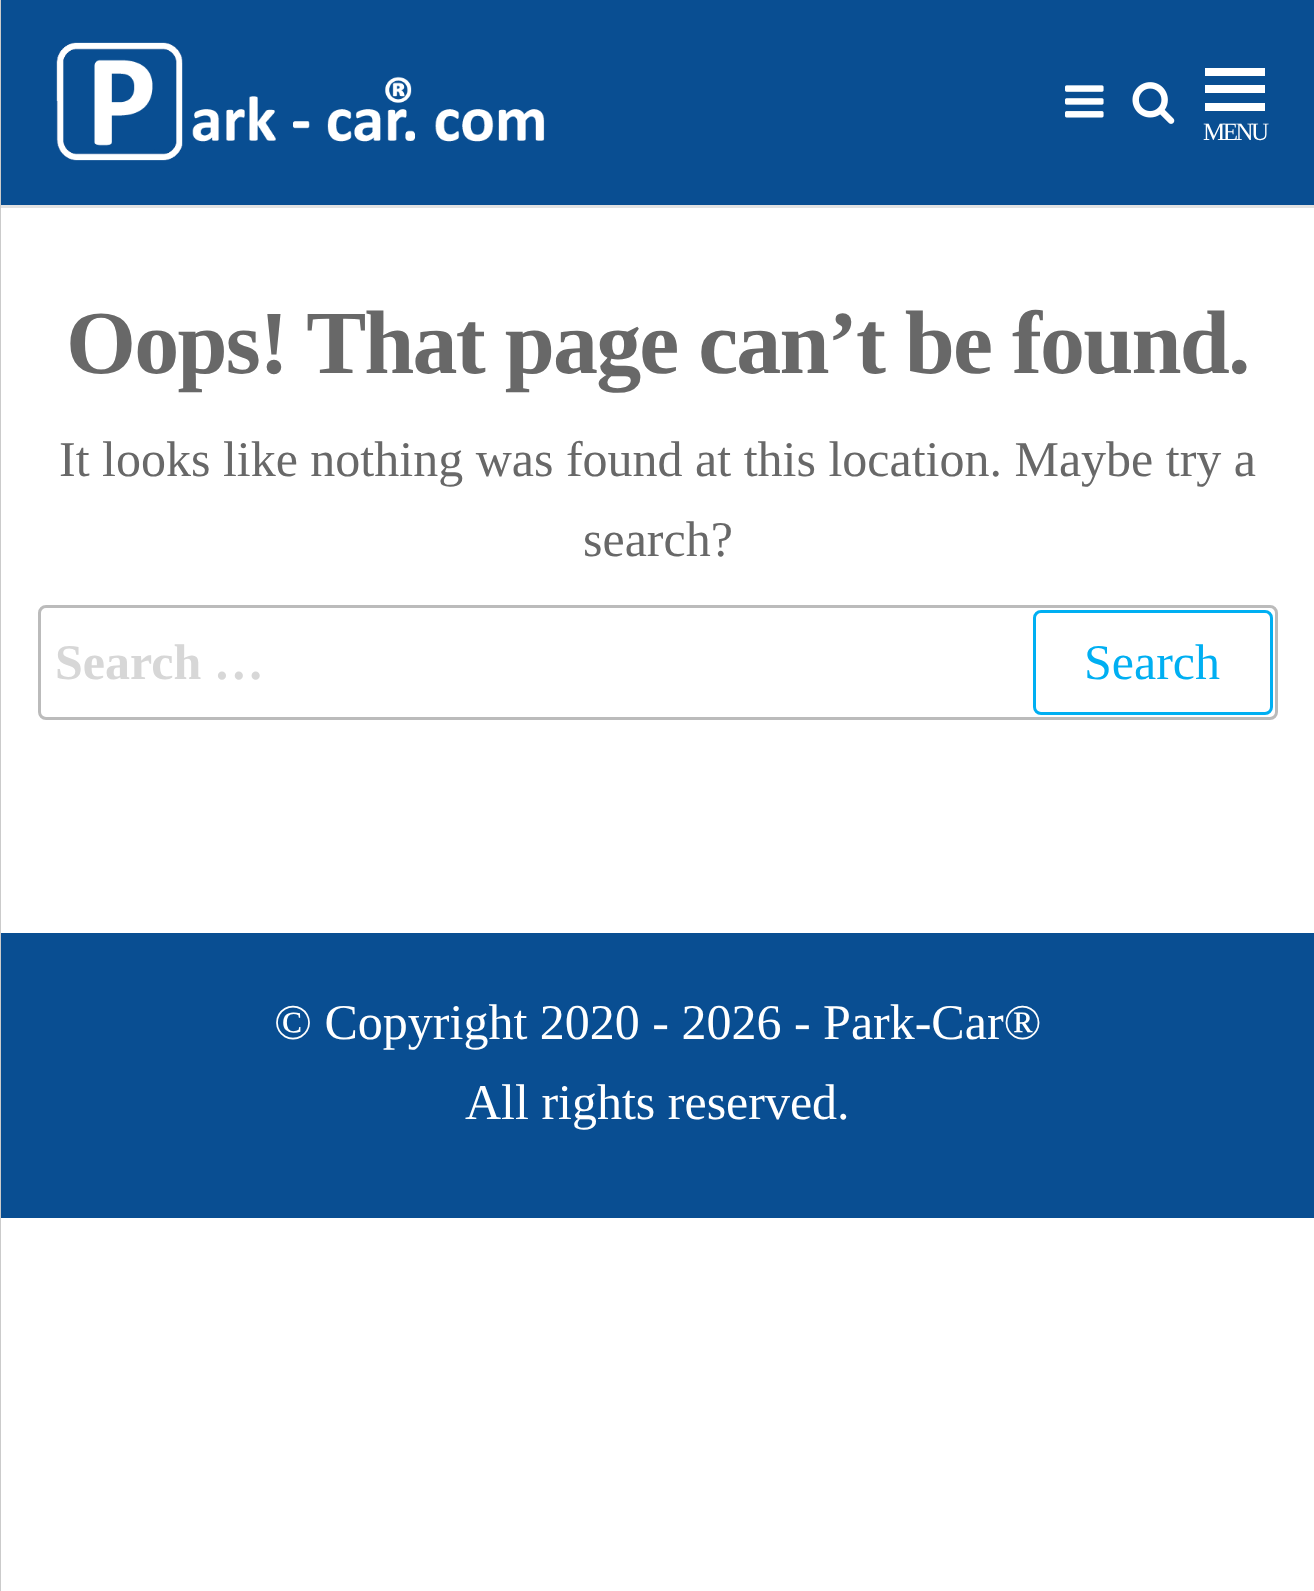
<!DOCTYPE html>
<meta charset="utf-8">
<style>body { margin: 0 } canvas { display: block }</style>
<canvas id="canvas" width="1314" height="1591"></canvas>
<img id="img1" src="img_01.png" hidden>
<img id="img2" src="img_02.png" hidden>
<img id="img3" src="img_03.png" hidden>
<script>
window.onload = function () {
	const canvas = document.getElementById("canvas");
	const ctx = canvas.getContext("2d");
	ctx.miterLimit = 4;
	ctx.fontKerning = "normal";
	function txt(s, x, y) {
		ctx.fillText(s, x, y);
	}
	function fill(x, y, w, h) {
		ctx.fillRect(x, y, w, h);
	}
	function img(id, x, y, w, h) {
		ctx.drawImage(document.getElementById(id), x, y, w, h);
	}

	ctx.fillStyle = "#FFFFFF";
	fill(0, 0, 1314, 1591);
	ctx.fillStyle = "#E2E2E2";
	fill(0, 205, 1314, 3);
	ctx.fillStyle = "#CBCBCB";
	fill(0, 0, 1, 1591);
	ctx.fillStyle = "#094E92";
	fill(1, 0, 1313, 205);
	img("img1", 56, 42, 489, 119);
	img("img2", 1065, 85, 39, 33);
	img("img3", 1132, 82, 43, 42);
	ctx.fillStyle = "#FFFFFF";
	fill(1205, 68, 60, 8);
	fill(1205, 85, 60, 8);
	fill(1205, 103, 60, 8);
	ctx.beginPath();
	ctx.roundRect(39.5, 606.5, 1237, 112, 6.5);
	ctx.strokeStyle = "#BBBBBB";
	ctx.lineWidth = 3;
	ctx.stroke();
	ctx.beginPath();
	ctx.roundRect(1034.5, 611.5, 237, 102, 6.5);
	ctx.strokeStyle = "#00AFF2";
	ctx.stroke();
	ctx.fillStyle = "#094E92";
	fill(1, 933, 1313, 285);
	ctx.letterSpacing = "-2.5px";
	ctx.font = "25px Liberation Serif";
	ctx.fillStyle = "#FFFFFF";
	txt("MENU", 1203, 140);
	ctx.letterSpacing = "-1.8px";
	ctx.font = "bold 90px Liberation Serif";
	ctx.fillStyle = "#686868";
	txt("Oops! That page can’t be found.", 66, 373);
	ctx.letterSpacing = "0px";
	ctx.font = "50px Liberation Serif";
	txt("It looks like nothing was found at this location. Maybe try a", 59, 476);
	txt("search?", 583, 556);
	ctx.font = "bold 50px Liberation Serif";
	ctx.fillStyle = "#D7D7D7";
	txt("Search …", 55, 679);
	ctx.font = "50px Liberation Serif";
	ctx.fillStyle = "#00AFF2";
	txt("Search", 1084, 679);
	ctx.fillStyle = "#FFFFFF";
	txt("© Copyright 2020 - 2026 - Park-Car®", 274, 1039);
	txt("All rights reserved.", 465, 1119);
};
</script>
